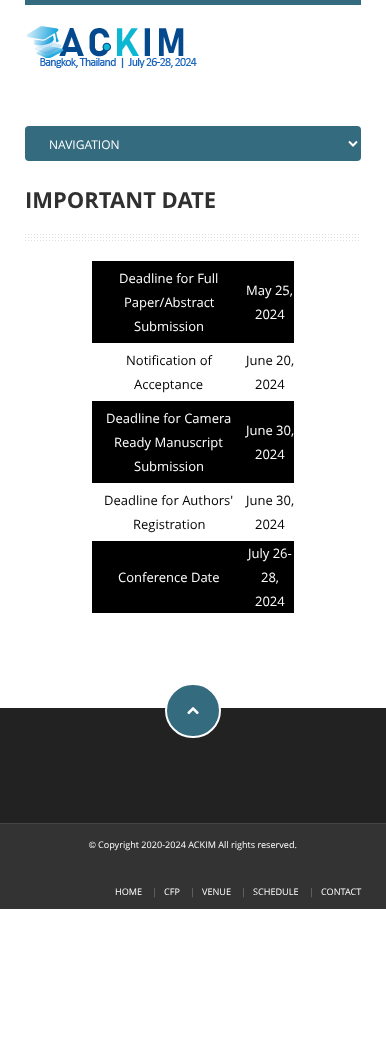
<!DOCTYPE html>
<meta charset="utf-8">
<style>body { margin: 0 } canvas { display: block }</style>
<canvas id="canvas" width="386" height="1058"></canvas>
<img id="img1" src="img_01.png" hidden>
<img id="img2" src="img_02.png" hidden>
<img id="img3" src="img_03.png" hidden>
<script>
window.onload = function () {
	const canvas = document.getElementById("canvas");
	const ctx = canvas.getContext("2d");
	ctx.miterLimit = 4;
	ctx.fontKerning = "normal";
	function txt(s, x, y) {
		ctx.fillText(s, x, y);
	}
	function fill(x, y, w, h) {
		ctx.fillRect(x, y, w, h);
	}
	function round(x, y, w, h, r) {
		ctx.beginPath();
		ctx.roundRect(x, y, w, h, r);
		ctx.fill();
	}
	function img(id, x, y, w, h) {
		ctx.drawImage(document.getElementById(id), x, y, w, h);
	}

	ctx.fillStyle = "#FFFFFF";
	fill(0, 0, 386, 1058);
	ctx.fillStyle = "#346B7F";
	fill(25, 0, 336, 5);
	img("img1", 26, 26, 171, 42);
	round(25, 126, 336, 35, 4);
	ctx.beginPath();
	ctx.moveTo(349, 141.5);
	ctx.lineTo(353, 145.5);
	ctx.lineTo(357, 141.5);
	ctx.strokeStyle = "#FFFFFF";
	ctx.lineWidth = 2;
	ctx.stroke();
	img("img2", 25, 234, 334, 7);
	ctx.fillStyle = "#000000";
	fill(92, 261, 202, 82);
	fill(92, 401, 202, 82);
	fill(92, 541, 202, 72);
	ctx.fillStyle = "#222222";
	fill(0, 708, 386, 115);
	ctx.fillStyle = "#346B7F";
	ctx.beginPath();
	ctx.roundRect(166, 684, 54, 53, 26.5);
	ctx.fill();
	ctx.stroke();
	img("img3", 187, 707, 12, 8);
	ctx.fillStyle = "#333333";
	fill(0, 824, 386, 85);
	ctx.fillStyle = "#444444";
	fill(0, 823, 386, 1);
	ctx.font = "12px Open Sans";
	ctx.fillStyle = "#FFFFFF";
	txt("NAVIGATION", 49, 149);
	ctx.font = "bold 22px Open Sans";
	ctx.fillStyle = "#303030";
	txt("IMPORTANT DATE", 25, 208);
	ctx.font = "13px Open Sans";
	ctx.fillStyle = "#FFFFFF";
	txt("Deadline for Full", 119, 283);
	txt("Paper/Abstract", 124, 307);
	txt("Submission", 134, 331);
	txt("May 25,", 246, 295);
	txt("2024", 255, 319);
	ctx.fillStyle = "#000000";
	txt("Notification of", 126, 365);
	txt("Acceptance", 134, 389);
	txt("June 20,", 246, 365);
	txt("2024", 255, 389);
	ctx.fillStyle = "#FFFFFF";
	txt("Deadline for Camera", 106, 423);
	txt("Ready Manuscript", 114, 447);
	txt("Submission", 134, 471);
	txt("June 30,", 246, 435);
	txt("2024", 255, 459);
	ctx.fillStyle = "#000000";
	txt("Deadline for Authors'", 104, 505);
	txt("Registration", 133, 529);
	txt("June 30,", 246, 505);
	txt("2024", 255, 529);
	ctx.fillStyle = "#FFFFFF";
	txt("Conference Date", 118, 582);
	txt("July 26-", 248, 558);
	txt("28,", 261, 582);
	txt("2024", 255, 606);
	ctx.font = "9.1px Liberation Sans";
	txt("©", 89, 848);
	ctx.font = "9.1px Open Sans";
	txt("Copyright 2020-2024 ACKIM All rights reserved.", 98, 848);
	txt("HOME", 115, 895);
	ctx.fillStyle = "#777777";
	txt("|", 152, 895);
	ctx.fillStyle = "#FFFFFF";
	txt("CFP", 164, 895);
	ctx.fillStyle = "#777777";
	txt("|", 190, 895);
	ctx.fillStyle = "#FFFFFF";
	txt("VENUE", 202, 895);
	ctx.fillStyle = "#777777";
	txt("|", 241, 895);
	ctx.fillStyle = "#FFFFFF";
	txt("SCHEDULE", 253, 895);
	ctx.fillStyle = "#777777";
	txt("|", 309, 895);
	ctx.fillStyle = "#FFFFFF";
	txt("CONTACT", 321, 895);
};
</script>
